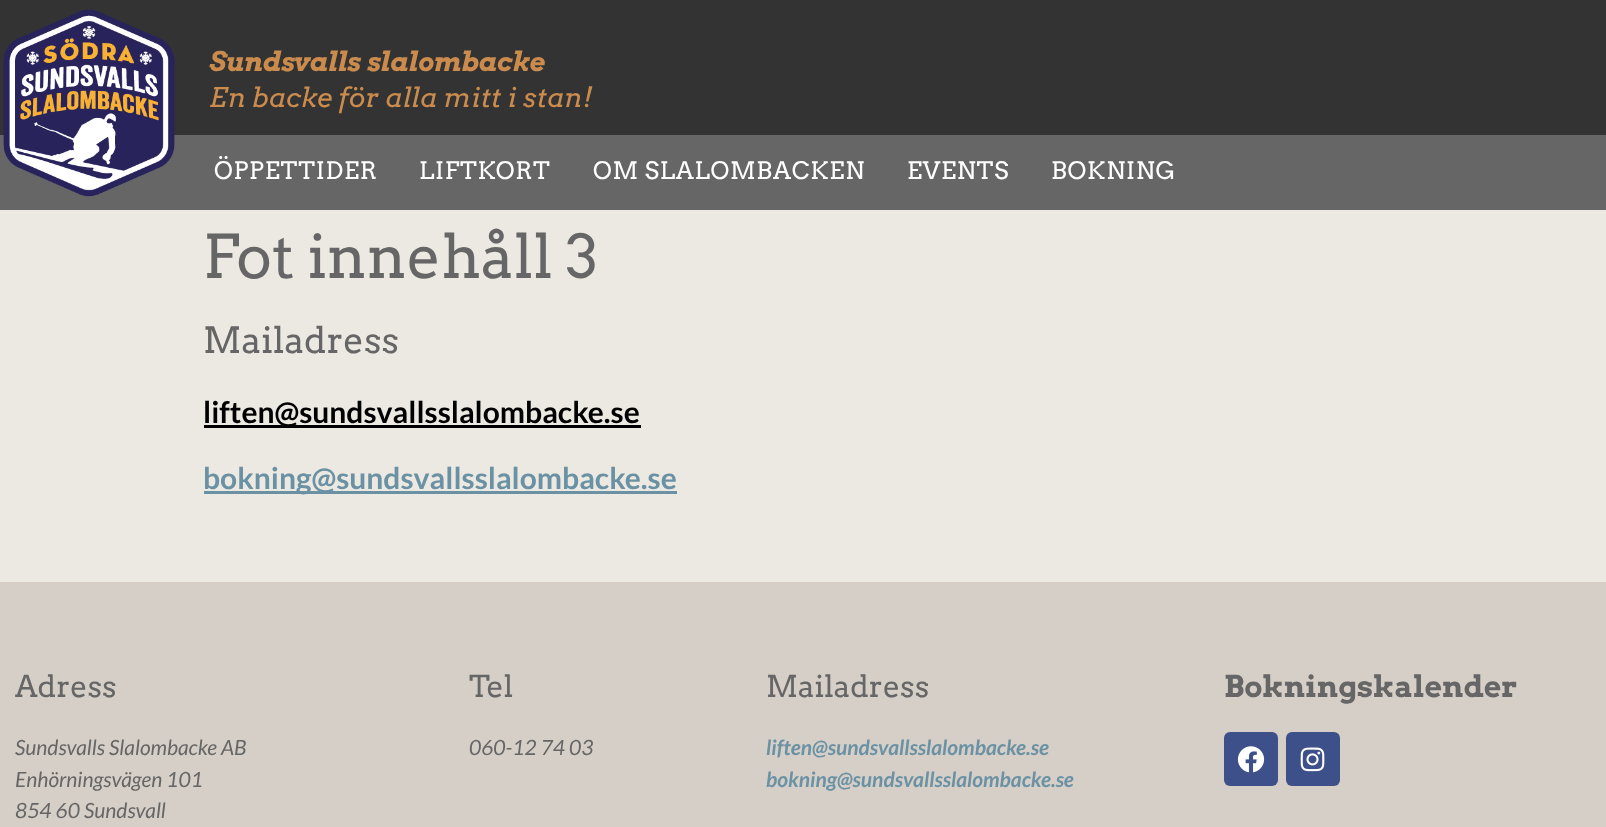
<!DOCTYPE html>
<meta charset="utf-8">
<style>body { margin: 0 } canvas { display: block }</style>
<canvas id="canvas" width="1606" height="827"></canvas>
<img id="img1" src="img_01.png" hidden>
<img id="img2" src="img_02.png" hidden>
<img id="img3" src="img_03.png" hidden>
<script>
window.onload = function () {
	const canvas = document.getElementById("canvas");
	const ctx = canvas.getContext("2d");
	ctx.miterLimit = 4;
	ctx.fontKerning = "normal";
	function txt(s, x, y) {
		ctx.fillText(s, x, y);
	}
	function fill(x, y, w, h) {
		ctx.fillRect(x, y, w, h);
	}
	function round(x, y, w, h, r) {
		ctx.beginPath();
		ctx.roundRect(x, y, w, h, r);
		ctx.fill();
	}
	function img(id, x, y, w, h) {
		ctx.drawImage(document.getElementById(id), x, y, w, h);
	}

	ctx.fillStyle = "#EBE9E1";
	fill(0, 0, 1606, 827);
	ctx.fillStyle = "#333333";
	fill(0, 0, 1606, 135);
	ctx.fillStyle = "#666666";
	fill(0, 135, 1606, 75);
	img("img1", 3, 9, 172, 188);
	ctx.fillStyle = "#000000";
	fill(204, 425, 437, 3);
	ctx.fillStyle = "#6B92A4";
	fill(204, 491, 473, 3);
	ctx.fillStyle = "#D6CFC7";
	fill(0, 582, 1606, 245);
	ctx.fillStyle = "#3D508A";
	round(1224, 732, 54, 54, 6);
	img("img2", 1237, 746, 28, 27);
	round(1286, 732, 54, 54, 6);
	img("img3", 1300, 747, 25, 25);
	ctx.font = "italic bold 27px Arvo";
	ctx.fillStyle = "#CA8B4D";
	txt("Sundsvalls slalombacke", 209, 71);
	ctx.font = "italic 27px Arvo";
	txt("En backe för alla mitt i stan!", 209, 107);
	ctx.letterSpacing = "0.75px";
	ctx.font = "24px Arvo";
	ctx.fillStyle = "#FFFFFF";
	txt("ÖPPETTIDER", 214, 179);
	txt("LIFTKORT", 419, 179);
	txt("OM SLALOMBACKEN", 593, 179);
	txt("EVENTS", 907, 179);
	txt("BOKNING", 1051, 179);
	ctx.letterSpacing = "0px";
	ctx.font = "60px Arvo";
	ctx.fillStyle = "#666666";
	txt("Fot innehåll 3", 203, 278);
	ctx.font = "36px Arvo";
	txt("Mailadress", 203, 353);
	ctx.font = "bold 30px Lato";
	ctx.fillStyle = "#000000";
	txt("liften@sundsvallsslalombacke.se", 203, 423);
	ctx.fillStyle = "#6B92A4";
	txt("bokning@sundsvallsslalombacke.se", 203, 489);
	ctx.font = "30px Arvo";
	ctx.fillStyle = "#666666";
	txt("Adress", 15, 697);
	ctx.font = "italic 21px Lato";
	txt("Sundsvalls Slalombacke AB", 15, 755);
	txt("Enhörningsvägen 101", 15, 787);
	txt("854 60 Sundsvall", 15, 818);
	ctx.font = "30px Arvo";
	txt("Tel", 469, 697);
	ctx.font = "italic 21px Lato";
	txt("060-12 74 03", 469, 755);
	ctx.font = "30px Arvo";
	txt("Mailadress", 766, 697);
	ctx.font = "italic bold 21px Lato";
	ctx.fillStyle = "#6B92A4";
	txt("liften@sundsvallsslalombacke.se", 766, 755);
	txt("bokning@sundsvallsslalombacke.se", 766, 787);
	ctx.font = "bold 30px Arvo";
	ctx.fillStyle = "#666666";
	txt("Bokningskalender", 1224, 697);
};
</script>
